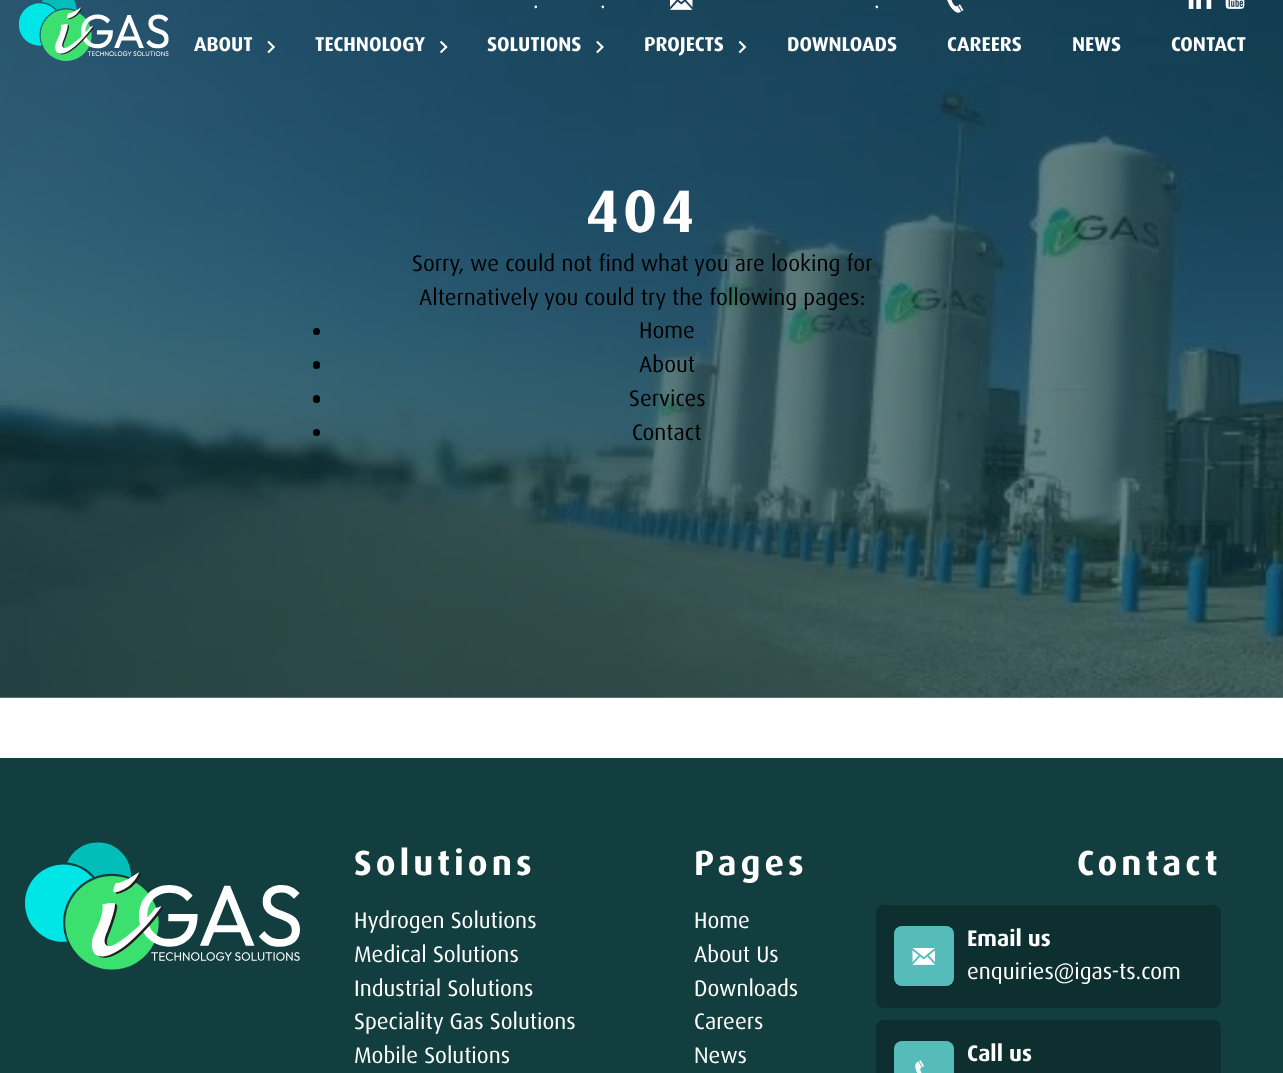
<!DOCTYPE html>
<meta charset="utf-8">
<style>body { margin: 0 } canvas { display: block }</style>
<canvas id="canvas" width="1283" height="1073"></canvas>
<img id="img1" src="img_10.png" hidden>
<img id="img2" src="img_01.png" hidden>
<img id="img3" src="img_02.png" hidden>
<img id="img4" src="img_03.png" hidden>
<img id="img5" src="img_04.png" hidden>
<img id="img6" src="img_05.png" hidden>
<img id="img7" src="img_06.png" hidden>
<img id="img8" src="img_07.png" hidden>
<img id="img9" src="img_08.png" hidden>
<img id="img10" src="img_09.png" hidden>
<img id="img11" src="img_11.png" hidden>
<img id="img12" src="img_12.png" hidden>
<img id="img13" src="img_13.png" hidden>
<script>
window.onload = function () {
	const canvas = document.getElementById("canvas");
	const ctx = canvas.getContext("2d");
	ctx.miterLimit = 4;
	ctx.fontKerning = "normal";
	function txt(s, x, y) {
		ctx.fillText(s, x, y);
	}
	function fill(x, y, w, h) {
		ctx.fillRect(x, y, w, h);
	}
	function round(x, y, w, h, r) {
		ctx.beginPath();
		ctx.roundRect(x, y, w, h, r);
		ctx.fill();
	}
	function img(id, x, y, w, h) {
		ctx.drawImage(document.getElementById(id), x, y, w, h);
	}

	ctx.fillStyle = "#FFFFFF";
	fill(0, 0, 1283, 1073);
	ctx.fillStyle = "#668282";
	fill(0, 697, 1283, 1);
	img("img1", 0, 0, 1283, 698);
	img("img2", 19, 0, 150, 61);
	img("img3", 670, 0, 23, 10);
	img("img4", 947, 0, 17, 13);
	img("img5", 1188, 0, 24, 9);
	img("img6", 1225, 0, 20, 9);
	img("img7", 267, 40, 8, 14);
	img("img8", 439, 40, 9, 14);
	img("img9", 596, 40, 8, 14);
	img("img10", 738, 40, 9, 14);
	ctx.fillStyle = "#000000";
	ctx.beginPath();
	ctx.arc(316.5, 331.5, 3.5, 0, Math.PI * 2);
	ctx.fill();
	round(313, 361, 7, 8, 3.5);
	round(313, 395, 7, 8, 3.5);
	ctx.beginPath();
	ctx.arc(316.5, 432.5, 3.5, 0, Math.PI * 2);
	ctx.fill();
	ctx.fillStyle = "#133E3F";
	fill(0, 758, 1283, 315);
	img("img11", 25, 842, 275, 128);
	ctx.fillStyle = "#0E2F2F";
	round(876, 905, 345, 103, 8);
	ctx.fillStyle = "#55BCB9";
	round(894, 926, 60, 60, 8);
	img("img12", 912, 948, 23, 17);
	ctx.fillStyle = "#0E2F2F";
	round(876, 1020, 345, 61, 8);
	ctx.fillStyle = "#55BCB9";
	round(894, 1041, 60, 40, 8);
	img("img13", 915, 1060, 9, 13);
	ctx.font = "22.5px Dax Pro";
	ctx.fillStyle = "#FFFFFF";
	txt(".", 533, 8);
	txt(".", 600, 8);
	txt(".", 874, 8);
	ctx.font = "bold 20px Dax Pro";
	txt("ABOUT", 194, 51);
	txt("TECHNOLOGY", 315, 51);
	txt("SOLUTIONS", 487, 51);
	txt("PROJECTS", 644, 51);
	txt("DOWNLOADS", 787, 51);
	txt("CAREERS", 947, 51);
	txt("NEWS", 1072, 51);
	txt("CONTACT", 1171, 51);
	ctx.letterSpacing = "4px";
	ctx.font = "bold 60px Dax Pro";
	txt("404", 586, 232);
	ctx.letterSpacing = "0px";
	ctx.font = "22.5px Dax Pro";
	ctx.fillStyle = "#000000";
	txt("Sorry, we could not find what you are looking for", 412, 271);
	txt("Alternatively you could try the following pages:", 419, 305);
	txt("Home", 639, 338);
	txt("About", 639, 372);
	txt("Services", 629, 406);
	txt("Contact", 632, 440);
	ctx.letterSpacing = "4px";
	ctx.font = "bold 35px Dax Pro";
	ctx.fillStyle = "#FFFFFF";
	txt("Solutions", 354, 875);
	ctx.letterSpacing = "0px";
	ctx.font = "22.5px Dax Pro";
	txt("Hydrogen Solutions", 354, 928);
	txt("Medical Solutions", 354, 962);
	txt("Industrial Solutions", 354, 996);
	txt("Speciality Gas Solutions", 354, 1029);
	txt("Mobile Solutions", 354, 1063);
	ctx.letterSpacing = "4px";
	ctx.font = "bold 35px Dax Pro";
	txt("Pages", 694, 875);
	ctx.letterSpacing = "0px";
	ctx.font = "22.5px Dax Pro";
	txt("Home", 694, 928);
	txt("About Us", 694, 962);
	txt("Downloads", 694, 996);
	txt("Careers", 694, 1029);
	txt("News", 694, 1063);
	ctx.letterSpacing = "4px";
	ctx.font = "bold 35px Dax Pro";
	txt("Contact", 1077, 875);
	ctx.letterSpacing = "0px";
	ctx.font = "bold 22.5px Dax Pro";
	txt("Email us", 967, 946);
	ctx.font = "22.5px Dax Pro";
	txt("enquiries@igas-ts.com", 967, 979);
	ctx.font = "bold 22.5px Dax Pro";
	txt("Call us", 967, 1061);
};
</script>
